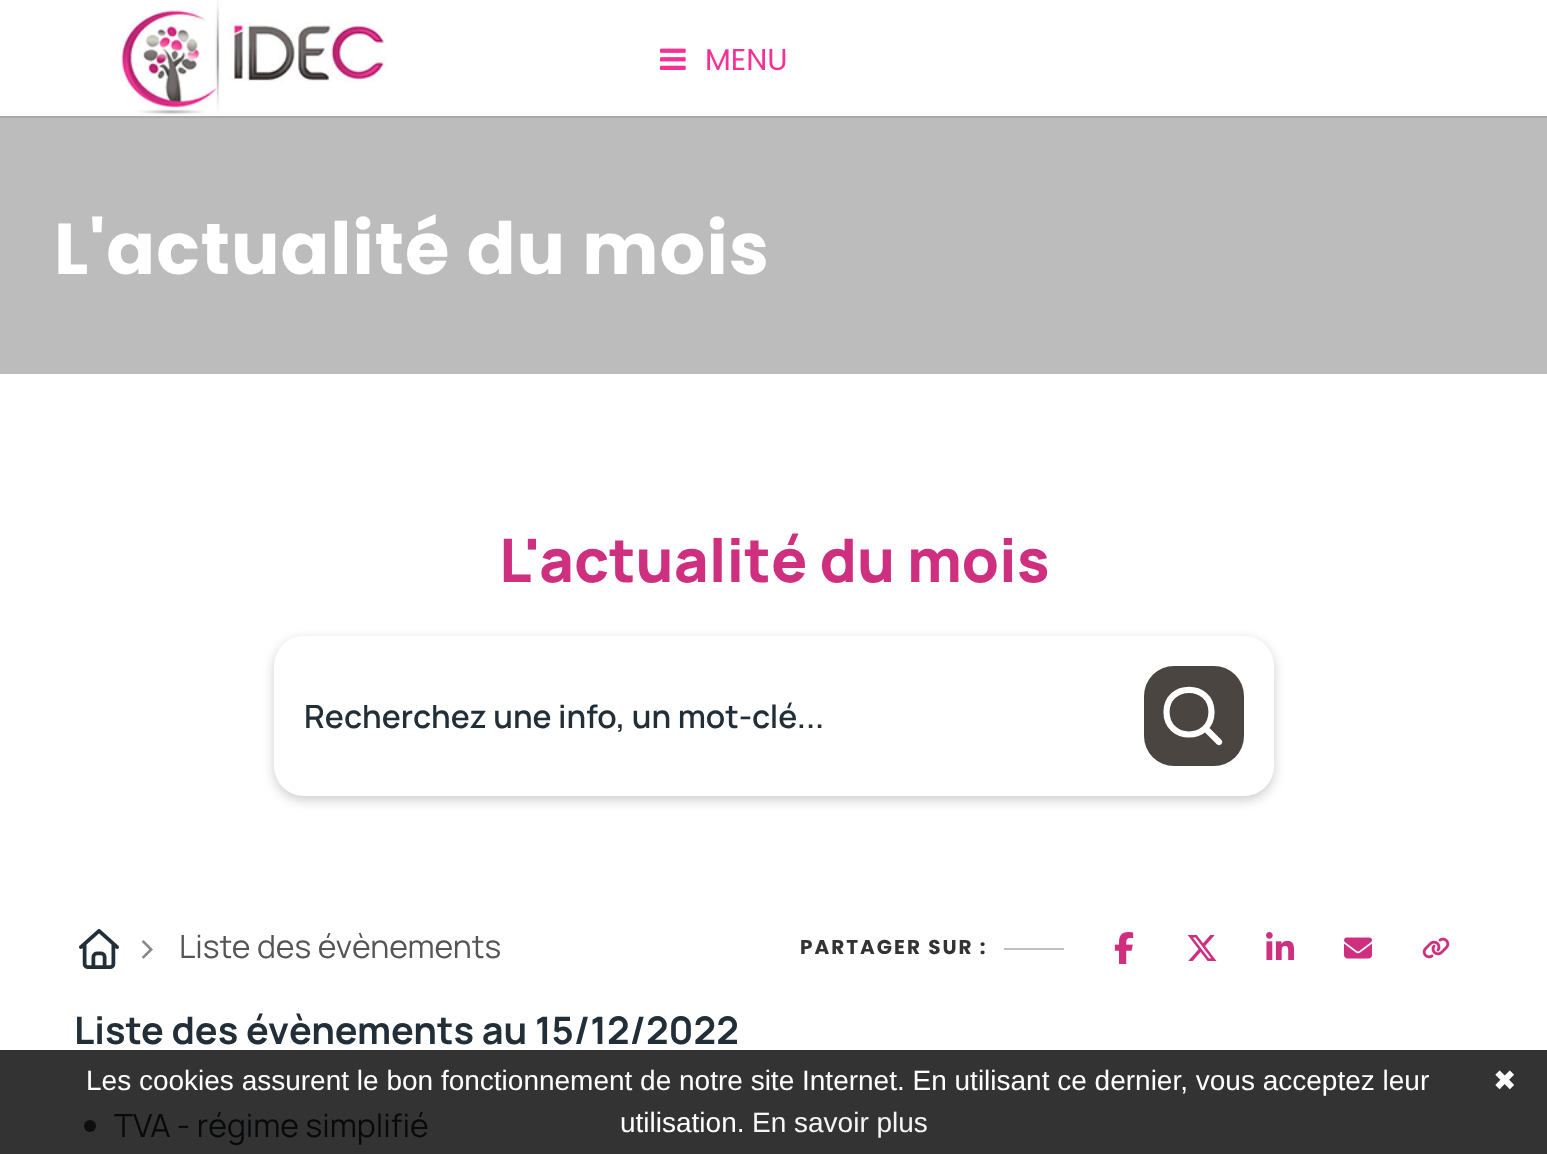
<!DOCTYPE html>
<meta charset="utf-8">
<style>body { margin: 0 } canvas { display: block }</style>
<canvas id="canvas" width="1547" height="1154"></canvas>
<img id="img1" src="img_01.png" hidden>
<img id="img2" src="img_02.png" hidden>
<img id="img3" src="img_03.png" hidden>
<img id="img4" src="img_04.png" hidden>
<img id="img5" src="img_05.png" hidden>
<img id="img6" src="img_06.png" hidden>
<img id="img7" src="img_07.png" hidden>
<img id="img8" src="img_08.png" hidden>
<script>
window.onload = function () {
	const canvas = document.getElementById("canvas");
	const ctx = canvas.getContext("2d");
	ctx.miterLimit = 4;
	ctx.fontKerning = "normal";
	function txt(s, x, y) {
		ctx.fillText(s, x, y);
	}
	function fill(x, y, w, h) {
		ctx.fillRect(x, y, w, h);
	}
	function round(x, y, w, h, r) {
		ctx.beginPath();
		ctx.roundRect(x, y, w, h, r);
		ctx.fill();
	}
	function img(id, x, y, w, h) {
		ctx.drawImage(document.getElementById(id), x, y, w, h);
	}

	ctx.fillStyle = "#FFFFFF";
	fill(0, 0, 1547, 1154);
	ctx.fillStyle = "#333333";
	fill(0, 1050, 1547, 104);
	ctx.fillStyle = "#A9A9A9";
	fill(0, 116, 1547, 2);
	img("img1", 120, 0, 266, 115);
	img("img2", 660, 48, 26, 22);
	ctx.fillStyle = "#BCBCBC";
	fill(0, 118, 1547, 256);
	ctx.fillStyle = "rgba(0, 0, 0, 0.2)";
	ctx.filter = "blur(6px)";
	ctx.beginPath();
	ctx.roundRect(274, 640, 1000, 160, 30);
	ctx.fill();
	ctx.filter = "none";
	ctx.fillStyle = "#FFFFFF";
	round(274, 636, 1000, 160, 30);
	ctx.fillStyle = "#4B4542";
	round(1144, 666, 100, 100, 30);
	ctx.beginPath();
	ctx.moveTo(1219, 742);
	ctx.lineTo(1205.5, 728.5);
	ctx.moveTo(1166.5, 712);
	ctx.bezierCurveTo(1166.5, 682.5, 1211.5, 682.5, 1211.5, 712);
	ctx.bezierCurveTo(1211.5, 742, 1166.5, 742, 1166.5, 712);
	ctx.closePath();
	ctx.strokeStyle = "#FFFFFF";
	ctx.lineWidth = 6.2;
	ctx.lineCap = "round";
	ctx.lineJoin = "round";
	ctx.stroke();
	img("img3", 79, 929, 40, 40);
	ctx.fillStyle = "#C0C0C0";
	fill(1004, 948, 60, 2);
	img("img4", 1114, 932, 20, 32);
	img("img5", 1187, 935, 30, 26);
	img("img6", 1266, 932, 28, 28);
	img("img7", 1344, 937, 28, 22);
	img("img8", 1422, 937, 28, 22);
	ctx.fillStyle = "#0F0E0D";
	ctx.beginPath();
	ctx.arc(90, 1126, 6, 0, Math.PI * 2);
	ctx.fill();
	ctx.font = "30px Poppins";
	ctx.fillStyle = "#F53195";
	txt("MENU", 705, 70);
	ctx.letterSpacing = "1px";
	ctx.font = "bold 72px Poppins";
	ctx.fillStyle = "#FFFFFF";
	txt("L'actualité du mois", 54, 274);
	ctx.letterSpacing = "0px";
	ctx.font = "800 60px Manrope";
	ctx.fillStyle = "#CF2F7F";
	txt("L'actualité du mois", 499, 582);
	ctx.font = "600 32px Manrope";
	ctx.fillStyle = "#232F38";
	txt("Recherchez une info, un mot-clé...", 304, 728);
	ctx.font = "40px Manrope";
	ctx.fillStyle = "#888888";
	txt(">", 134, 962);
	ctx.font = "32px Manrope";
	ctx.fillStyle = "#555555";
	txt("Liste des évènements", 179, 958);
	ctx.letterSpacing = "2px";
	ctx.font = "bold 20px Poppins";
	ctx.fillStyle = "#333333";
	txt("PARTAGER SUR :", 800, 954);
	ctx.letterSpacing = "0px";
	ctx.font = "bold 38px Manrope";
	ctx.fillStyle = "#232F38";
	txt("Liste des évènements au 15/12/2022", 74, 1044);
	ctx.font = "32px Manrope";
	ctx.fillStyle = "#07090B";
	txt("TVA - régime simplifié", 114, 1137);
	ctx.font = "28px Liberation Sans";
	ctx.fillStyle = "#FFFFFF";
	txt("Les cookies assurent le bon fonctionnement de notre site Internet. En utilisant ce dernier, vous acceptez leur", 86, 1090);
	ctx.font = "28px DejaVu Sans";
	txt("✖", 1493, 1090);
	ctx.font = "28px Liberation Sans";
	txt("utilisation.", 620, 1132);
	ctx.fillStyle = "#F5F5F5";
	txt("En savoir plus", 752, 1132);
};
</script>
